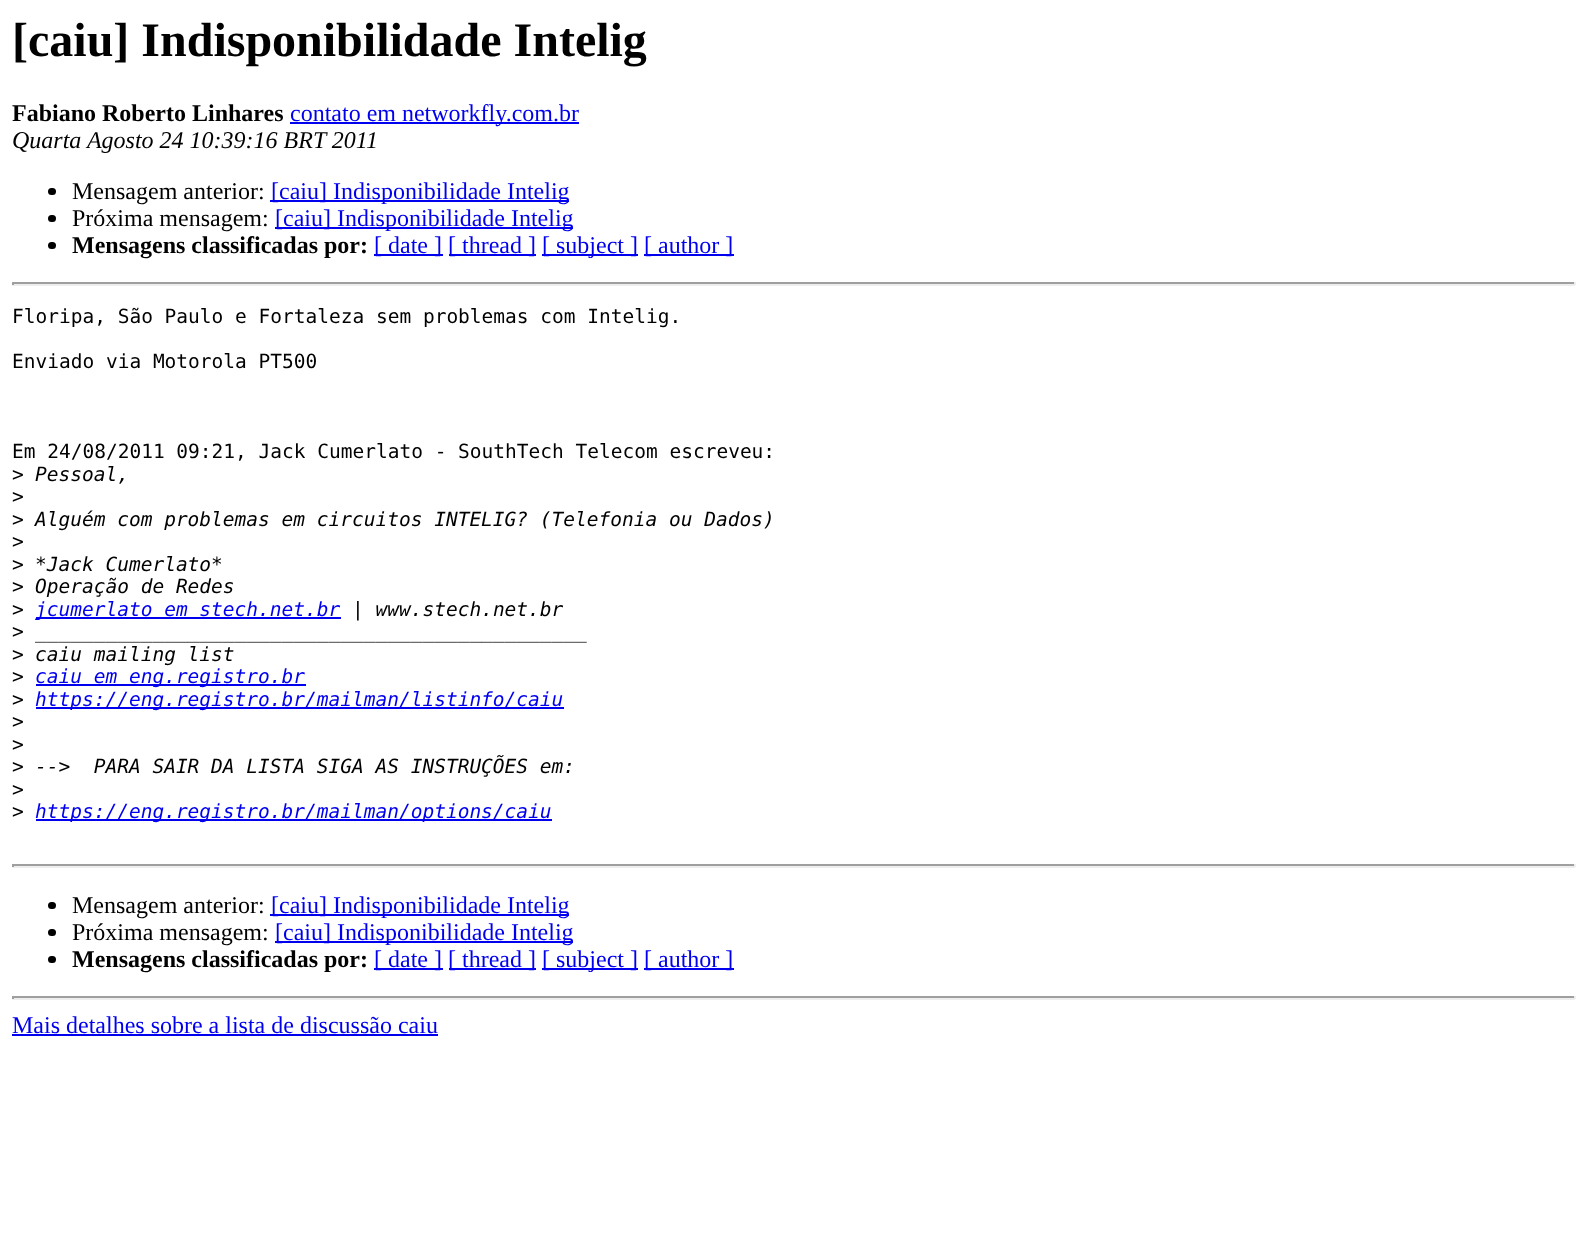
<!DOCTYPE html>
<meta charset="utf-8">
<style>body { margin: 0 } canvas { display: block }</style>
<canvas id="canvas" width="1586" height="1237"></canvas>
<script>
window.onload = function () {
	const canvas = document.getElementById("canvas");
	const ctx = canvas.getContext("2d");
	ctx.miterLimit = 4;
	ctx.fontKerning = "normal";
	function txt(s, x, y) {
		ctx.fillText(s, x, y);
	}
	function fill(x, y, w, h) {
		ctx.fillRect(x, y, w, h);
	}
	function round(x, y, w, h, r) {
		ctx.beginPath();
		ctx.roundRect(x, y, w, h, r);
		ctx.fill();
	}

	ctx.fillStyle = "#FFFFFF";
	fill(0, 0, 1586, 1237);
	ctx.fillStyle = "#0000EE";
	fill(290, 122, 289, 2);
	ctx.fillStyle = "#000000";
	round(48, 188, 8, 7, 3.5);
	ctx.fillStyle = "#0000EE";
	fill(270, 200, 299, 2);
	ctx.fillStyle = "#000000";
	round(48, 215, 8, 7, 3.5);
	ctx.fillStyle = "#0000EE";
	fill(275, 227, 298, 2);
	ctx.fillStyle = "#000000";
	round(48, 242, 8, 7, 3.5);
	ctx.fillStyle = "#0000EE";
	fill(374, 254, 69, 2);
	fill(449, 254, 87, 2);
	fill(542, 254, 96, 2);
	fill(644, 254, 90, 2);
	ctx.fillStyle = "#9F9F9F";
	fill(12, 282, 1563, 2);
	ctx.fillStyle = "#EEEEEE";
	fill(1574, 282, 2, 3);
	fill(12, 284, 1563, 2);
	ctx.fillStyle = "#9F9F9F";
	fill(12, 282, 2, 3);
	ctx.fillStyle = "#0000EE";
	fill(36, 617, 305, 2);
	fill(36, 684, 270, 2);
	fill(36, 707, 528, 2);
	fill(36, 819, 516, 2);
	ctx.fillStyle = "#9F9F9F";
	fill(12, 864, 1563, 2);
	ctx.fillStyle = "#EEEEEE";
	fill(1574, 864, 2, 3);
	fill(12, 866, 1563, 2);
	ctx.fillStyle = "#9F9F9F";
	fill(12, 864, 2, 3);
	ctx.fillStyle = "#000000";
	round(48, 902, 8, 7, 3.5);
	ctx.fillStyle = "#0000EE";
	fill(270, 914, 299, 2);
	ctx.fillStyle = "#000000";
	round(48, 929, 8, 7, 3.5);
	ctx.fillStyle = "#0000EE";
	fill(275, 941, 298, 2);
	ctx.fillStyle = "#000000";
	round(48, 956, 8, 7, 3.5);
	ctx.fillStyle = "#0000EE";
	fill(374, 968, 69, 2);
	fill(449, 968, 87, 2);
	fill(542, 968, 96, 2);
	fill(644, 968, 90, 2);
	ctx.fillStyle = "#9F9F9F";
	fill(12, 996, 1563, 2);
	ctx.fillStyle = "#EEEEEE";
	fill(1574, 996, 2, 3);
	fill(12, 998, 1563, 2);
	ctx.fillStyle = "#9F9F9F";
	fill(12, 996, 2, 3);
	ctx.fillStyle = "#0000EE";
	fill(12, 1034, 426, 2);
	ctx.font = "bold 48px Liberation Serif";
	ctx.fillStyle = "#000000";
	txt("[caiu] Indisponibilidade Intelig", 12, 56);
	ctx.font = "bold 24px Liberation Serif";
	txt("Fabiano Roberto Linhares", 12, 121);
	ctx.font = "24px Liberation Serif";
	ctx.fillStyle = "#0000EE";
	txt("contato em networkfly.com.br", 290, 121);
	ctx.font = "italic 24px Liberation Serif";
	ctx.fillStyle = "#000000";
	txt("Quarta Agosto 24 10:39:16 BRT 2011", 12, 148);
	ctx.font = "24px Liberation Serif";
	txt("Mensagem anterior:", 72, 199);
	ctx.fillStyle = "#0000EE";
	txt("[caiu] Indisponibilidade Intelig", 271, 199);
	ctx.fillStyle = "#000000";
	txt("Próxima mensagem:", 72, 226);
	ctx.fillStyle = "#0000EE";
	txt("[caiu] Indisponibilidade Intelig", 275, 226);
	ctx.font = "bold 24px Liberation Serif";
	ctx.fillStyle = "#000000";
	txt("Mensagens classificadas por:", 72, 253);
	ctx.font = "24px Liberation Serif";
	ctx.fillStyle = "#0000EE";
	txt("[ date ]", 374, 253);
	txt("[ thread ]", 448, 253);
	txt("[ subject ]", 542, 253);
	txt("[ author ]", 644, 253);
	ctx.font = "19.5px DejaVu Sans Mono";
	ctx.fillStyle = "#000000";
	txt("Floripa, São Paulo e Fortaleza sem problemas com Intelig.", 12, 323);
	txt("Enviado via Motorola PT500", 12, 368);
	txt("Em 24/08/2011 09:21, Jack Cumerlato - SouthTech Telecom escreveu:", 12, 458);
	txt(">", 12, 481);
	ctx.font = "italic 19.5px DejaVu Sans Mono";
	txt("Pessoal,", 35, 481);
	ctx.font = "19.5px DejaVu Sans Mono";
	txt(">", 12, 503);
	txt(">", 12, 526);
	ctx.font = "italic 19.5px DejaVu Sans Mono";
	txt("Alguém com problemas em circuitos INTELIG? (Telefonia ou Dados)", 35, 526);
	ctx.font = "19.5px DejaVu Sans Mono";
	txt(">", 12, 548);
	txt(">", 12, 571);
	ctx.font = "italic 19.5px DejaVu Sans Mono";
	txt("*Jack Cumerlato*", 35, 571);
	ctx.font = "19.5px DejaVu Sans Mono";
	txt(">", 12, 593);
	ctx.font = "italic 19.5px DejaVu Sans Mono";
	txt("Operação de Redes", 35, 593);
	ctx.font = "19.5px DejaVu Sans Mono";
	txt(">", 12, 616);
	ctx.font = "italic 19.5px DejaVu Sans Mono";
	ctx.fillStyle = "#0000EE";
	txt("jcumerlato em stech.net.br", 35, 616);
	ctx.fillStyle = "#000000";
	txt("| www.stech.net.br", 352, 616);
	ctx.font = "19.5px DejaVu Sans Mono";
	txt(">", 12, 638);
	ctx.font = "italic 19.5px DejaVu Sans Mono";
	txt("_______________________________________________", 35, 638);
	ctx.font = "19.5px DejaVu Sans Mono";
	txt(">", 12, 661);
	ctx.font = "italic 19.5px DejaVu Sans Mono";
	txt("caiu mailing list", 35, 661);
	ctx.font = "19.5px DejaVu Sans Mono";
	txt(">", 12, 683);
	ctx.font = "italic 19.5px DejaVu Sans Mono";
	ctx.fillStyle = "#0000EE";
	txt("caiu em eng.registro.br", 35, 683);
	ctx.font = "19.5px DejaVu Sans Mono";
	ctx.fillStyle = "#000000";
	txt(">", 12, 706);
	ctx.font = "italic 19.5px DejaVu Sans Mono";
	ctx.fillStyle = "#0000EE";
	txt("https://eng.registro.br/mailman/listinfo/caiu", 35, 706);
	ctx.font = "19.5px DejaVu Sans Mono";
	ctx.fillStyle = "#000000";
	txt(">", 12, 728);
	txt(">", 12, 751);
	txt(">", 12, 773);
	ctx.font = "italic 19.5px DejaVu Sans Mono";
	txt("-->  PARA SAIR DA LISTA SIGA AS INSTRUÇÕES em:", 35, 773);
	ctx.font = "19.5px DejaVu Sans Mono";
	txt(">", 12, 796);
	txt(">", 12, 818);
	ctx.font = "italic 19.5px DejaVu Sans Mono";
	ctx.fillStyle = "#0000EE";
	txt("https://eng.registro.br/mailman/options/caiu", 35, 818);
	ctx.font = "24px Liberation Serif";
	ctx.fillStyle = "#000000";
	txt("Mensagem anterior:", 72, 913);
	ctx.fillStyle = "#0000EE";
	txt("[caiu] Indisponibilidade Intelig", 271, 913);
	ctx.fillStyle = "#000000";
	txt("Próxima mensagem:", 72, 940);
	ctx.fillStyle = "#0000EE";
	txt("[caiu] Indisponibilidade Intelig", 275, 940);
	ctx.font = "bold 24px Liberation Serif";
	ctx.fillStyle = "#000000";
	txt("Mensagens classificadas por:", 72, 967);
	ctx.font = "24px Liberation Serif";
	ctx.fillStyle = "#0000EE";
	txt("[ date ]", 374, 967);
	txt("[ thread ]", 448, 967);
	txt("[ subject ]", 542, 967);
	txt("[ author ]", 644, 967);
	txt("Mais detalhes sobre a lista de discussão caiu", 12, 1033);
};
</script>
